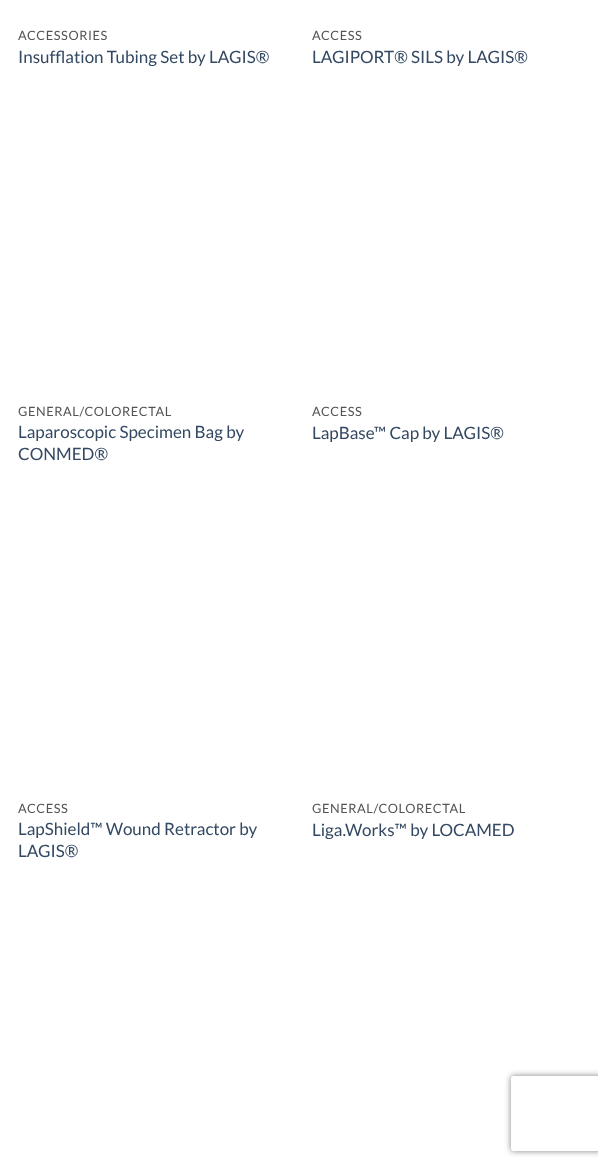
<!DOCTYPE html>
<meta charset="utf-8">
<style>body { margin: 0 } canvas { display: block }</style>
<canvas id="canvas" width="598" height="1168"></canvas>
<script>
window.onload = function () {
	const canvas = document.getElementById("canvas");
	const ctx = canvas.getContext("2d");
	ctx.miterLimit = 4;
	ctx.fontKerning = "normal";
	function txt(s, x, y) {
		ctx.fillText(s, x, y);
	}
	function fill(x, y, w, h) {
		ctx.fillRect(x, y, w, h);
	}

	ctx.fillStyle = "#FFFFFF";
	fill(0, 0, 598, 1168);
	ctx.save();
	ctx.beginPath();
	ctx.moveTo(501, 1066);
	ctx.lineTo(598, 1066);
	ctx.lineTo(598, 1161);
	ctx.lineTo(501, 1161);
	ctx.closePath();
	ctx.moveTo(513.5, 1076);
	ctx.lineTo(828.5, 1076);
	ctx.bezierCurveTo(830, 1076, 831, 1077, 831, 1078.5);
	ctx.lineTo(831, 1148.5);
	ctx.bezierCurveTo(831, 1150, 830, 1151, 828.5, 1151);
	ctx.lineTo(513.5, 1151);
	ctx.bezierCurveTo(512, 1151, 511, 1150, 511, 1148.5);
	ctx.lineTo(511, 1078.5);
	ctx.bezierCurveTo(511, 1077, 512, 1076, 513.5, 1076);
	ctx.closePath();
	ctx.clip("evenodd");
	ctx.fillStyle = "#808080";
	ctx.filter = "blur(3px)";
	ctx.beginPath();
	ctx.roundRect(511, 1076, 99, 75, 2.5);
	ctx.fill();
	ctx.filter = "none";
	ctx.restore();
	ctx.letterSpacing = "0.6px";
	ctx.font = "12.75px Lato";
	ctx.fillStyle = "#545454";
	txt("ACCESSORIES", 18, 40);
	ctx.letterSpacing = "0px";
	ctx.font = "17px Lato";
	ctx.fillStyle = "#334862";
	txt("Insufflation Tubing Set by LAGIS®", 18, 63);
	ctx.letterSpacing = "0.6px";
	ctx.font = "12.75px Lato";
	ctx.fillStyle = "#545454";
	txt("ACCESS", 312, 40);
	ctx.letterSpacing = "0px";
	ctx.font = "17px Lato";
	ctx.fillStyle = "#334862";
	txt("LAGIPORT® SILS by LAGIS®", 312, 63);
	ctx.letterSpacing = "0.6px";
	ctx.font = "12.75px Lato";
	ctx.fillStyle = "#545454";
	txt("GENERAL/COLORECTAL", 18, 416);
	ctx.letterSpacing = "0px";
	ctx.font = "17px Lato";
	ctx.fillStyle = "#334862";
	txt("Laparoscopic Specimen Bag by", 18, 438);
	txt("CONMED®", 18, 460);
	ctx.letterSpacing = "0.6px";
	ctx.font = "12.75px Lato";
	ctx.fillStyle = "#545454";
	txt("ACCESS", 312, 416);
	ctx.letterSpacing = "0px";
	ctx.font = "17px Lato";
	ctx.fillStyle = "#334862";
	txt("LapBase™ Cap by LAGIS®", 312, 439);
	ctx.letterSpacing = "0.6px";
	ctx.font = "12.75px Lato";
	ctx.fillStyle = "#545454";
	txt("ACCESS", 18, 813);
	ctx.letterSpacing = "0px";
	ctx.font = "17px Lato";
	ctx.fillStyle = "#334862";
	txt("LapShield™ Wound Retractor by", 18, 835);
	txt("LAGIS®", 18, 857);
	ctx.letterSpacing = "0.6px";
	ctx.font = "12.75px Lato";
	ctx.fillStyle = "#545454";
	txt("GENERAL/COLORECTAL", 312, 813);
	ctx.letterSpacing = "0px";
	ctx.font = "17px Lato";
	ctx.fillStyle = "#334862";
	txt("Liga.Works™ by LOCAMED", 312, 836);
};
</script>
